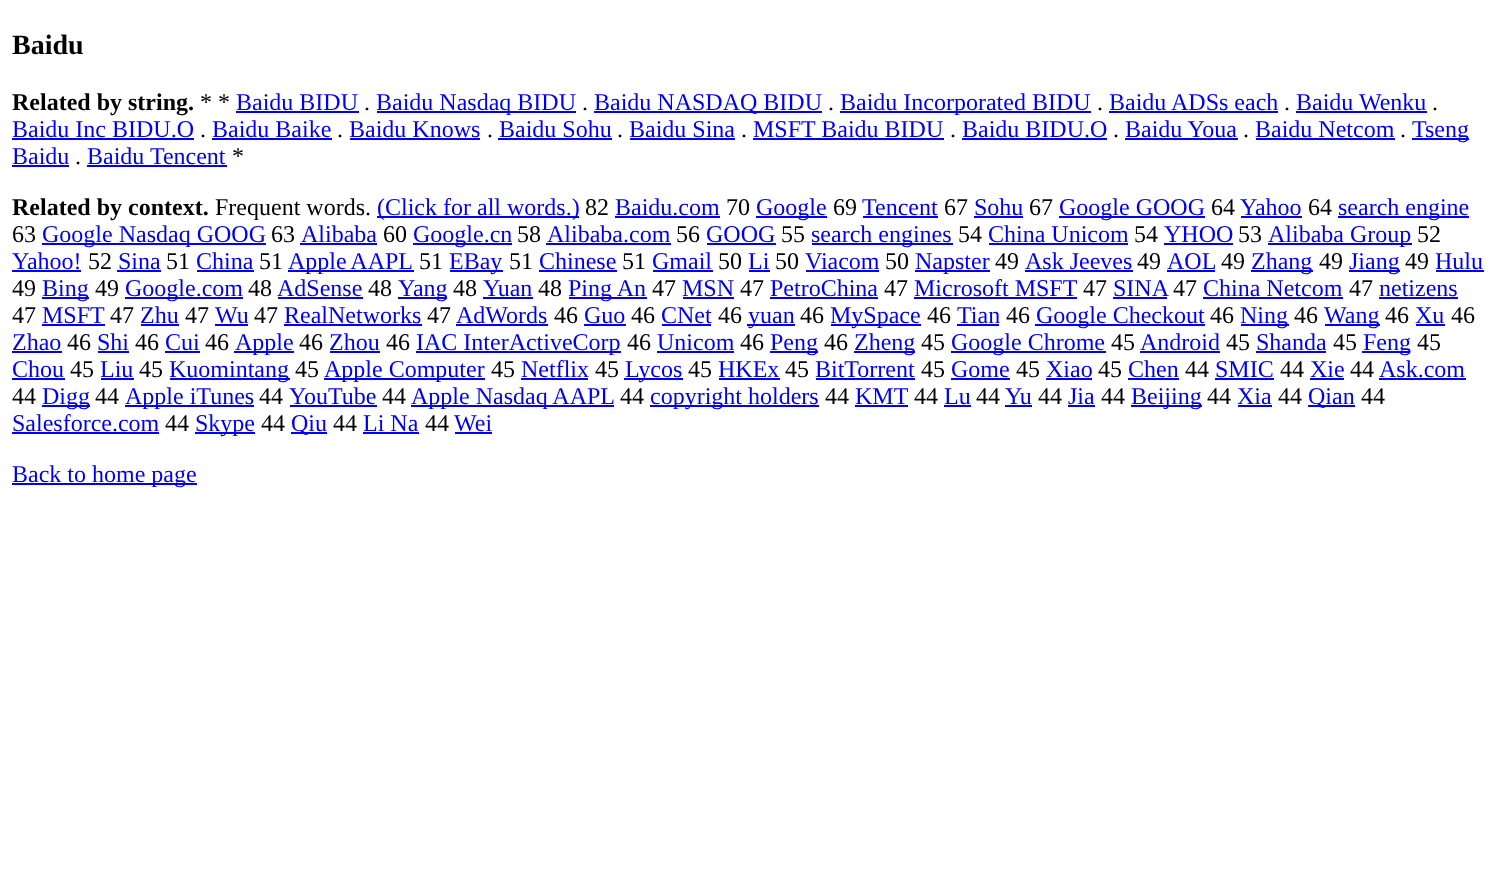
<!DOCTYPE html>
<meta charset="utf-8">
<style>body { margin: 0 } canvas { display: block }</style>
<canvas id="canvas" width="1496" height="869"></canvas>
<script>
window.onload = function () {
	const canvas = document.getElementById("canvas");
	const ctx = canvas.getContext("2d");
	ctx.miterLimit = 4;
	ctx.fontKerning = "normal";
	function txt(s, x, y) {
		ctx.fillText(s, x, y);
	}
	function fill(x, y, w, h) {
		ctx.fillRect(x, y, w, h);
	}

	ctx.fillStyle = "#FFFFFF";
	fill(0, 0, 1496, 869);
	ctx.fillStyle = "#0000EE";
	fill(236, 111, 123, 2);
	fill(377, 111, 199, 2);
	fill(594, 111, 228, 2);
	fill(840, 111, 251, 2);
	fill(1109, 111, 169, 2);
	fill(1296, 111, 131, 2);
	fill(12, 138, 182, 2);
	fill(212, 138, 120, 2);
	fill(350, 138, 130, 2);
	fill(498, 138, 114, 2);
	fill(630, 138, 105, 2);
	fill(753, 138, 191, 2);
	fill(962, 138, 145, 2);
	fill(1125, 138, 113, 2);
	fill(1256, 138, 139, 2);
	fill(1412, 138, 57, 2);
	fill(12, 165, 57, 2);
	fill(87, 165, 140, 2);
	fill(377, 216, 202, 2);
	fill(615, 216, 105, 2);
	fill(756, 216, 71, 2);
	fill(863, 216, 75, 2);
	fill(974, 216, 49, 2);
	fill(1059, 216, 146, 2);
	fill(1241, 216, 61, 2);
	fill(1338, 216, 131, 2);
	fill(42, 243, 224, 2);
	fill(300, 243, 77, 2);
	fill(413, 243, 99, 2);
	fill(546, 243, 125, 2);
	fill(707, 243, 69, 2);
	fill(812, 243, 141, 2);
	fill(989, 243, 139, 2);
	fill(1164, 243, 69, 2);
	fill(1268, 243, 144, 2);
	fill(12, 270, 69, 2);
	fill(117, 270, 44, 2);
	fill(197, 270, 57, 2);
	fill(288, 270, 126, 2);
	fill(450, 270, 53, 2);
	fill(539, 270, 78, 2);
	fill(653, 270, 60, 2);
	fill(749, 270, 21, 2);
	fill(806, 270, 73, 2);
	fill(915, 270, 75, 2);
	fill(1025, 270, 108, 2);
	fill(1167, 270, 48, 2);
	fill(1251, 270, 62, 2);
	fill(1349, 270, 51, 2);
	fill(1436, 270, 48, 2);
	fill(42, 297, 47, 2);
	fill(125, 297, 118, 2);
	fill(278, 297, 85, 2);
	fill(398, 297, 49, 2);
	fill(483, 297, 50, 2);
	fill(569, 297, 78, 2);
	fill(683, 297, 51, 2);
	fill(770, 297, 108, 2);
	fill(914, 297, 163, 2);
	fill(1113, 297, 54, 2);
	fill(1203, 297, 140, 2);
	fill(1379, 297, 79, 2);
	fill(42, 324, 63, 2);
	fill(141, 324, 38, 2);
	fill(215, 324, 33, 2);
	fill(284, 324, 138, 2);
	fill(456, 324, 92, 2);
	fill(584, 324, 42, 2);
	fill(662, 324, 49, 2);
	fill(747, 324, 48, 2);
	fill(831, 324, 90, 2);
	fill(957, 324, 42, 2);
	fill(1035, 324, 170, 2);
	fill(1241, 324, 48, 2);
	fill(1325, 324, 55, 2);
	fill(1416, 324, 29, 2);
	fill(12, 351, 50, 2);
	fill(98, 351, 31, 2);
	fill(165, 351, 35, 2);
	fill(234, 351, 60, 2);
	fill(330, 351, 50, 2);
	fill(416, 351, 205, 2);
	fill(657, 351, 77, 2);
	fill(770, 351, 48, 2);
	fill(854, 351, 61, 2);
	fill(951, 351, 155, 2);
	fill(1140, 351, 80, 2);
	fill(1256, 351, 70, 2);
	fill(1362, 351, 48, 2);
	fill(12, 378, 53, 2);
	fill(101, 378, 33, 2);
	fill(170, 378, 120, 2);
	fill(324, 378, 161, 2);
	fill(521, 378, 67, 2);
	fill(624, 378, 59, 2);
	fill(719, 378, 61, 2);
	fill(816, 378, 99, 2);
	fill(951, 378, 59, 2);
	fill(1046, 378, 46, 2);
	fill(1128, 378, 51, 2);
	fill(1215, 378, 59, 2);
	fill(1310, 378, 34, 2);
	fill(1379, 378, 87, 2);
	fill(42, 405, 48, 2);
	fill(125, 405, 129, 2);
	fill(290, 405, 87, 2);
	fill(411, 405, 203, 2);
	fill(650, 405, 169, 2);
	fill(855, 405, 53, 2);
	fill(944, 405, 27, 2);
	fill(1005, 405, 27, 2);
	fill(1068, 405, 27, 2);
	fill(1131, 405, 71, 2);
	fill(1238, 405, 34, 2);
	fill(1308, 405, 47, 2);
	fill(12, 432, 147, 2);
	fill(195, 432, 60, 2);
	fill(291, 432, 36, 2);
	fill(363, 432, 56, 2);
	fill(455, 432, 37, 2);
	fill(12, 483, 185, 2);
	ctx.font = "bold 28px Liberation Serif";
	ctx.fillStyle = "#000000";
	txt("Baidu", 12, 54);
	ctx.font = "bold 24px Liberation Serif";
	txt("Related by string.", 12, 110);
	ctx.font = "24px Liberation Serif";
	txt("* *", 200, 110);
	ctx.fillStyle = "#0000EE";
	txt("Baidu BIDU", 236, 110);
	txt("Baidu Nasdaq BIDU", 376, 110);
	txt("Baidu NASDAQ BIDU", 594, 110);
	txt("Baidu Incorporated BIDU", 840, 110);
	txt("Baidu ADSs each", 1109, 110);
	txt("Baidu Wenku", 1296, 110);
	ctx.fillStyle = "#000000";
	txt(".", 364, 110);
	txt(".", 582, 110);
	txt(".", 828, 110);
	txt(".", 1097, 110);
	txt(".", 1284, 110);
	txt(".", 1432, 110);
	ctx.fillStyle = "#0000EE";
	txt("Baidu Inc BIDU.O", 12, 137);
	ctx.fillStyle = "#000000";
	txt(".", 200, 137);
	ctx.fillStyle = "#0000EE";
	txt("Baidu Baike", 212, 137);
	ctx.fillStyle = "#000000";
	txt(".", 337, 137);
	ctx.fillStyle = "#0000EE";
	txt("Baidu Knows", 349, 137);
	ctx.fillStyle = "#000000";
	txt(".", 487, 137);
	ctx.fillStyle = "#0000EE";
	txt("Baidu Sohu", 499, 137);
	ctx.fillStyle = "#000000";
	txt(".", 617, 137);
	ctx.fillStyle = "#0000EE";
	txt("Baidu Sina", 629, 137);
	ctx.fillStyle = "#000000";
	txt(".", 741, 137);
	ctx.fillStyle = "#0000EE";
	txt("MSFT Baidu BIDU", 753, 137);
	ctx.fillStyle = "#000000";
	txt(".", 950, 137);
	ctx.fillStyle = "#0000EE";
	txt("Baidu BIDU.O", 962, 137);
	ctx.fillStyle = "#000000";
	txt(".", 1113, 137);
	ctx.fillStyle = "#0000EE";
	txt("Baidu Youa", 1125, 137);
	ctx.fillStyle = "#000000";
	txt(".", 1243, 137);
	ctx.fillStyle = "#0000EE";
	txt("Baidu Netcom", 1255, 137);
	ctx.fillStyle = "#000000";
	txt(".", 1400, 137);
	ctx.fillStyle = "#0000EE";
	txt("Tseng", 1412, 137);
	txt("Baidu", 12, 164);
	txt("Baidu Tencent", 87, 164);
	ctx.fillStyle = "#000000";
	txt("*", 232, 164);
	txt(".", 75, 164);
	ctx.font = "bold 24px Liberation Serif";
	txt("Related by context.", 12, 215);
	ctx.font = "24px Liberation Serif";
	txt("Frequent words.", 215, 215);
	ctx.fillStyle = "#0000EE";
	txt("(Click for all words.)", 377, 215);
	ctx.fillStyle = "#000000";
	txt("82", 585, 215);
	ctx.fillStyle = "#0000EE";
	txt("Baidu.com", 615, 215);
	ctx.fillStyle = "#000000";
	txt("70", 726, 215);
	ctx.fillStyle = "#0000EE";
	txt("Google", 756, 215);
	ctx.fillStyle = "#000000";
	txt("69", 833, 215);
	ctx.fillStyle = "#0000EE";
	txt("Tencent", 862, 215);
	ctx.fillStyle = "#000000";
	txt("67", 944, 215);
	ctx.fillStyle = "#0000EE";
	txt("Sohu", 974, 215);
	ctx.fillStyle = "#000000";
	txt("67", 1029, 215);
	ctx.fillStyle = "#0000EE";
	txt("Google GOOG", 1059, 215);
	ctx.fillStyle = "#000000";
	txt("64", 1211, 215);
	ctx.fillStyle = "#0000EE";
	txt("Yahoo", 1240, 215);
	ctx.fillStyle = "#000000";
	txt("64", 1308, 215);
	ctx.fillStyle = "#0000EE";
	txt("search engine", 1338, 215);
	ctx.fillStyle = "#000000";
	txt("63", 12, 242);
	ctx.fillStyle = "#0000EE";
	txt("Google Nasdaq GOOG", 42, 242);
	ctx.fillStyle = "#000000";
	txt("63", 271, 242);
	ctx.fillStyle = "#0000EE";
	txt("Alibaba", 301, 242);
	ctx.fillStyle = "#000000";
	txt("60", 383, 242);
	ctx.fillStyle = "#0000EE";
	txt("Google.cn", 413, 242);
	ctx.fillStyle = "#000000";
	txt("58", 517, 242);
	ctx.fillStyle = "#0000EE";
	txt("Alibaba.com", 547, 242);
	ctx.fillStyle = "#000000";
	txt("56", 676, 242);
	ctx.fillStyle = "#0000EE";
	txt("GOOG", 706, 242);
	ctx.fillStyle = "#000000";
	txt("55", 781, 242);
	ctx.fillStyle = "#0000EE";
	txt("search engines", 811, 242);
	ctx.fillStyle = "#000000";
	txt("54", 958, 242);
	ctx.fillStyle = "#0000EE";
	txt("China Unicom", 988, 242);
	ctx.fillStyle = "#000000";
	txt("54", 1134, 242);
	ctx.fillStyle = "#0000EE";
	txt("YHOO", 1164, 242);
	ctx.fillStyle = "#000000";
	txt("53", 1238, 242);
	ctx.fillStyle = "#0000EE";
	txt("Alibaba Group", 1268, 242);
	ctx.fillStyle = "#000000";
	txt("52", 1417, 242);
	ctx.fillStyle = "#0000EE";
	txt("Yahoo!", 12, 269);
	ctx.fillStyle = "#000000";
	txt("52", 88, 269);
	ctx.fillStyle = "#0000EE";
	txt("Sina", 118, 269);
	ctx.fillStyle = "#000000";
	txt("51", 166, 269);
	ctx.fillStyle = "#0000EE";
	txt("China", 196, 269);
	ctx.fillStyle = "#000000";
	txt("51", 259, 269);
	ctx.wordSpacing = "-1px";
	ctx.fillStyle = "#0000EE";
	txt("Apple AAPL", 288, 269);
	ctx.wordSpacing = "0px";
	ctx.fillStyle = "#000000";
	txt("51", 419, 269);
	ctx.fillStyle = "#0000EE";
	txt("EBay", 449, 269);
	ctx.fillStyle = "#000000";
	txt("51", 509, 269);
	ctx.fillStyle = "#0000EE";
	txt("Chinese", 539, 269);
	ctx.fillStyle = "#000000";
	txt("51", 622, 269);
	ctx.fillStyle = "#0000EE";
	txt("Gmail", 652, 269);
	ctx.fillStyle = "#000000";
	txt("50", 718, 269);
	ctx.fillStyle = "#0000EE";
	txt("Li", 748, 269);
	ctx.fillStyle = "#000000";
	txt("50", 775, 269);
	ctx.fillStyle = "#0000EE";
	txt("Viacom", 805, 269);
	ctx.fillStyle = "#000000";
	txt("50", 885, 269);
	ctx.fillStyle = "#0000EE";
	txt("Napster", 915, 269);
	ctx.fillStyle = "#000000";
	txt("49", 995, 269);
	ctx.fillStyle = "#0000EE";
	txt("Ask Jeeves", 1025, 269);
	ctx.fillStyle = "#000000";
	txt("49", 1137, 269);
	ctx.fillStyle = "#0000EE";
	txt("AOL", 1167, 269);
	ctx.fillStyle = "#000000";
	txt("49", 1221, 269);
	ctx.fillStyle = "#0000EE";
	txt("Zhang", 1251, 269);
	ctx.fillStyle = "#000000";
	txt("49", 1319, 269);
	ctx.fillStyle = "#0000EE";
	txt("Jiang", 1349, 269);
	ctx.fillStyle = "#000000";
	txt("49", 1405, 269);
	ctx.fillStyle = "#0000EE";
	txt("Hulu", 1435, 269);
	ctx.fillStyle = "#000000";
	txt("49", 12, 296);
	ctx.fillStyle = "#0000EE";
	txt("Bing", 42, 296);
	ctx.fillStyle = "#000000";
	txt("49", 95, 296);
	ctx.fillStyle = "#0000EE";
	txt("Google.com", 125, 296);
	ctx.fillStyle = "#000000";
	txt("48", 248, 296);
	ctx.fillStyle = "#0000EE";
	txt("AdSense", 277, 296);
	ctx.fillStyle = "#000000";
	txt("48", 368, 296);
	ctx.fillStyle = "#0000EE";
	txt("Yang", 398, 296);
	ctx.fillStyle = "#000000";
	txt("48", 453, 296);
	ctx.fillStyle = "#0000EE";
	txt("Yuan", 483, 296);
	ctx.fillStyle = "#000000";
	txt("48", 538, 296);
	ctx.fillStyle = "#0000EE";
	txt("Ping An", 568, 296);
	ctx.fillStyle = "#000000";
	txt("47", 652, 296);
	ctx.fillStyle = "#0000EE";
	txt("MSN", 682, 296);
	ctx.fillStyle = "#000000";
	txt("47", 740, 296);
	ctx.fillStyle = "#0000EE";
	txt("PetroChina", 770, 296);
	ctx.fillStyle = "#000000";
	txt("47", 884, 296);
	ctx.fillStyle = "#0000EE";
	txt("Microsoft MSFT", 914, 296);
	ctx.fillStyle = "#000000";
	txt("47", 1083, 296);
	ctx.fillStyle = "#0000EE";
	txt("SINA", 1113, 296);
	ctx.fillStyle = "#000000";
	txt("47", 1173, 296);
	ctx.fillStyle = "#0000EE";
	txt("China Netcom", 1203, 296);
	ctx.fillStyle = "#000000";
	txt("47", 1349, 296);
	ctx.fillStyle = "#0000EE";
	txt("netizens", 1379, 296);
	ctx.fillStyle = "#000000";
	txt("47", 12, 323);
	ctx.fillStyle = "#0000EE";
	txt("MSFT", 42, 323);
	ctx.fillStyle = "#000000";
	txt("47", 110, 323);
	ctx.fillStyle = "#0000EE";
	txt("Zhu", 140, 323);
	ctx.fillStyle = "#000000";
	txt("47", 185, 323);
	ctx.fillStyle = "#0000EE";
	txt("Wu", 215, 323);
	ctx.fillStyle = "#000000";
	txt("47", 254, 323);
	ctx.fillStyle = "#0000EE";
	txt("RealNetworks", 284, 323);
	ctx.fillStyle = "#000000";
	txt("47", 427, 323);
	ctx.fillStyle = "#0000EE";
	txt("AdWords", 456, 323);
	ctx.fillStyle = "#000000";
	txt("46", 554, 323);
	ctx.fillStyle = "#0000EE";
	txt("Guo", 584, 323);
	ctx.fillStyle = "#000000";
	txt("46", 631, 323);
	ctx.fillStyle = "#0000EE";
	txt("CNet", 661, 323);
	ctx.fillStyle = "#000000";
	txt("46", 718, 323);
	ctx.fillStyle = "#0000EE";
	txt("yuan", 748, 323);
	ctx.fillStyle = "#000000";
	txt("46", 800, 323);
	ctx.fillStyle = "#0000EE";
	txt("MySpace", 830, 323);
	ctx.fillStyle = "#000000";
	txt("46", 927, 323);
	ctx.fillStyle = "#0000EE";
	txt("Tian", 957, 323);
	ctx.fillStyle = "#000000";
	txt("46", 1006, 323);
	ctx.fillStyle = "#0000EE";
	txt("Google Checkout", 1036, 323);
	ctx.fillStyle = "#000000";
	txt("46", 1210, 323);
	ctx.fillStyle = "#0000EE";
	txt("Ning", 1240, 323);
	ctx.fillStyle = "#000000";
	txt("46", 1294, 323);
	ctx.fillStyle = "#0000EE";
	txt("Wang", 1324, 323);
	ctx.fillStyle = "#000000";
	txt("46", 1385, 323);
	ctx.fillStyle = "#0000EE";
	txt("Xu", 1415, 323);
	ctx.fillStyle = "#000000";
	txt("46", 1451, 323);
	ctx.fillStyle = "#0000EE";
	txt("Zhao", 12, 350);
	ctx.fillStyle = "#000000";
	txt("46", 67, 350);
	ctx.fillStyle = "#0000EE";
	txt("Shi", 97, 350);
	ctx.fillStyle = "#000000";
	txt("46", 135, 350);
	ctx.fillStyle = "#0000EE";
	txt("Cui", 165, 350);
	ctx.fillStyle = "#000000";
	txt("46", 205, 350);
	ctx.fillStyle = "#0000EE";
	txt("Apple", 235, 350);
	ctx.fillStyle = "#000000";
	txt("46", 299, 350);
	ctx.fillStyle = "#0000EE";
	txt("Zhou", 329, 350);
	ctx.fillStyle = "#000000";
	txt("46", 386, 350);
	ctx.fillStyle = "#0000EE";
	txt("IAC InterActiveCorp", 416, 350);
	ctx.fillStyle = "#000000";
	txt("46", 627, 350);
	ctx.fillStyle = "#0000EE";
	txt("Unicom", 657, 350);
	ctx.fillStyle = "#000000";
	txt("46", 740, 350);
	ctx.fillStyle = "#0000EE";
	txt("Peng", 770, 350);
	ctx.fillStyle = "#000000";
	txt("46", 824, 350);
	ctx.fillStyle = "#0000EE";
	txt("Zheng", 854, 350);
	ctx.fillStyle = "#000000";
	txt("45", 921, 350);
	ctx.fillStyle = "#0000EE";
	txt("Google Chrome", 951, 350);
	ctx.fillStyle = "#000000";
	txt("45", 1111, 350);
	ctx.fillStyle = "#0000EE";
	txt("Android", 1140, 350);
	ctx.fillStyle = "#000000";
	txt("45", 1226, 350);
	ctx.fillStyle = "#0000EE";
	txt("Shanda", 1256, 350);
	ctx.fillStyle = "#000000";
	txt("45", 1333, 350);
	ctx.fillStyle = "#0000EE";
	txt("Feng", 1363, 350);
	ctx.fillStyle = "#000000";
	txt("45", 1417, 350);
	ctx.fillStyle = "#0000EE";
	txt("Chou", 12, 377);
	ctx.fillStyle = "#000000";
	txt("45", 70, 377);
	ctx.fillStyle = "#0000EE";
	txt("Liu", 100, 377);
	ctx.fillStyle = "#000000";
	txt("45", 139, 377);
	ctx.fillStyle = "#0000EE";
	txt("Kuomintang", 169, 377);
	ctx.fillStyle = "#000000";
	txt("45", 295, 377);
	ctx.fillStyle = "#0000EE";
	txt("Apple Computer", 324, 377);
	ctx.fillStyle = "#000000";
	txt("45", 491, 377);
	ctx.fillStyle = "#0000EE";
	txt("Netflix", 521, 377);
	ctx.fillStyle = "#000000";
	txt("45", 595, 377);
	ctx.fillStyle = "#0000EE";
	txt("Lycos", 625, 377);
	ctx.fillStyle = "#000000";
	txt("45", 688, 377);
	ctx.fillStyle = "#0000EE";
	txt("HKEx", 718, 377);
	ctx.fillStyle = "#000000";
	txt("45", 785, 377);
	ctx.fillStyle = "#0000EE";
	txt("BitTorrent", 815, 377);
	ctx.fillStyle = "#000000";
	txt("45", 921, 377);
	ctx.fillStyle = "#0000EE";
	txt("Gome", 951, 377);
	ctx.fillStyle = "#000000";
	txt("45", 1016, 377);
	ctx.fillStyle = "#0000EE";
	txt("Xiao", 1046, 377);
	ctx.fillStyle = "#000000";
	txt("45", 1098, 377);
	ctx.fillStyle = "#0000EE";
	txt("Chen", 1128, 377);
	ctx.fillStyle = "#000000";
	txt("44", 1185, 377);
	ctx.fillStyle = "#0000EE";
	txt("SMIC", 1215, 377);
	ctx.fillStyle = "#000000";
	txt("44", 1280, 377);
	ctx.fillStyle = "#0000EE";
	txt("Xie", 1310, 377);
	ctx.fillStyle = "#000000";
	txt("44", 1350, 377);
	ctx.fillStyle = "#0000EE";
	txt("Ask.com", 1379, 377);
	ctx.fillStyle = "#000000";
	txt("44", 12, 404);
	ctx.fillStyle = "#0000EE";
	txt("Digg", 42, 404);
	ctx.fillStyle = "#000000";
	txt("44", 95, 404);
	ctx.fillStyle = "#0000EE";
	txt("Apple iTunes", 125, 404);
	ctx.fillStyle = "#000000";
	txt("44", 259, 404);
	ctx.fillStyle = "#0000EE";
	txt("YouTube", 289, 404);
	ctx.fillStyle = "#000000";
	txt("44", 382, 404);
	ctx.fillStyle = "#0000EE";
	txt("Apple Nasdaq AAPL", 411, 404);
	ctx.fillStyle = "#000000";
	txt("44", 620, 404);
	ctx.fillStyle = "#0000EE";
	txt("copyright holders", 650, 404);
	ctx.fillStyle = "#000000";
	txt("44", 825, 404);
	ctx.fillStyle = "#0000EE";
	txt("KMT", 855, 404);
	ctx.fillStyle = "#000000";
	txt("44", 914, 404);
	ctx.fillStyle = "#0000EE";
	txt("Lu", 944, 404);
	ctx.fillStyle = "#000000";
	txt("44", 976, 404);
	ctx.fillStyle = "#0000EE";
	txt("Yu", 1005, 404);
	ctx.fillStyle = "#000000";
	txt("44", 1038, 404);
	ctx.fillStyle = "#0000EE";
	txt("Jia", 1068, 404);
	ctx.fillStyle = "#000000";
	txt("44", 1101, 404);
	ctx.fillStyle = "#0000EE";
	txt("Beijing", 1131, 404);
	ctx.fillStyle = "#000000";
	txt("44", 1207, 404);
	ctx.fillStyle = "#0000EE";
	txt("Xia", 1237, 404);
	ctx.fillStyle = "#000000";
	txt("44", 1278, 404);
	ctx.fillStyle = "#0000EE";
	txt("Qian", 1308, 404);
	ctx.fillStyle = "#000000";
	txt("44", 1361, 404);
	ctx.fillStyle = "#0000EE";
	txt("Salesforce.com", 12, 431);
	ctx.fillStyle = "#000000";
	txt("44", 165, 431);
	ctx.fillStyle = "#0000EE";
	txt("Skype", 195, 431);
	ctx.fillStyle = "#000000";
	txt("44", 261, 431);
	ctx.fillStyle = "#0000EE";
	txt("Qiu", 291, 431);
	ctx.fillStyle = "#000000";
	txt("44", 333, 431);
	ctx.fillStyle = "#0000EE";
	txt("Li Na", 363, 431);
	ctx.fillStyle = "#000000";
	txt("44", 425, 431);
	ctx.fillStyle = "#0000EE";
	txt("Wei", 454, 431);
	txt("Back to home page", 12, 482);
};
</script>
